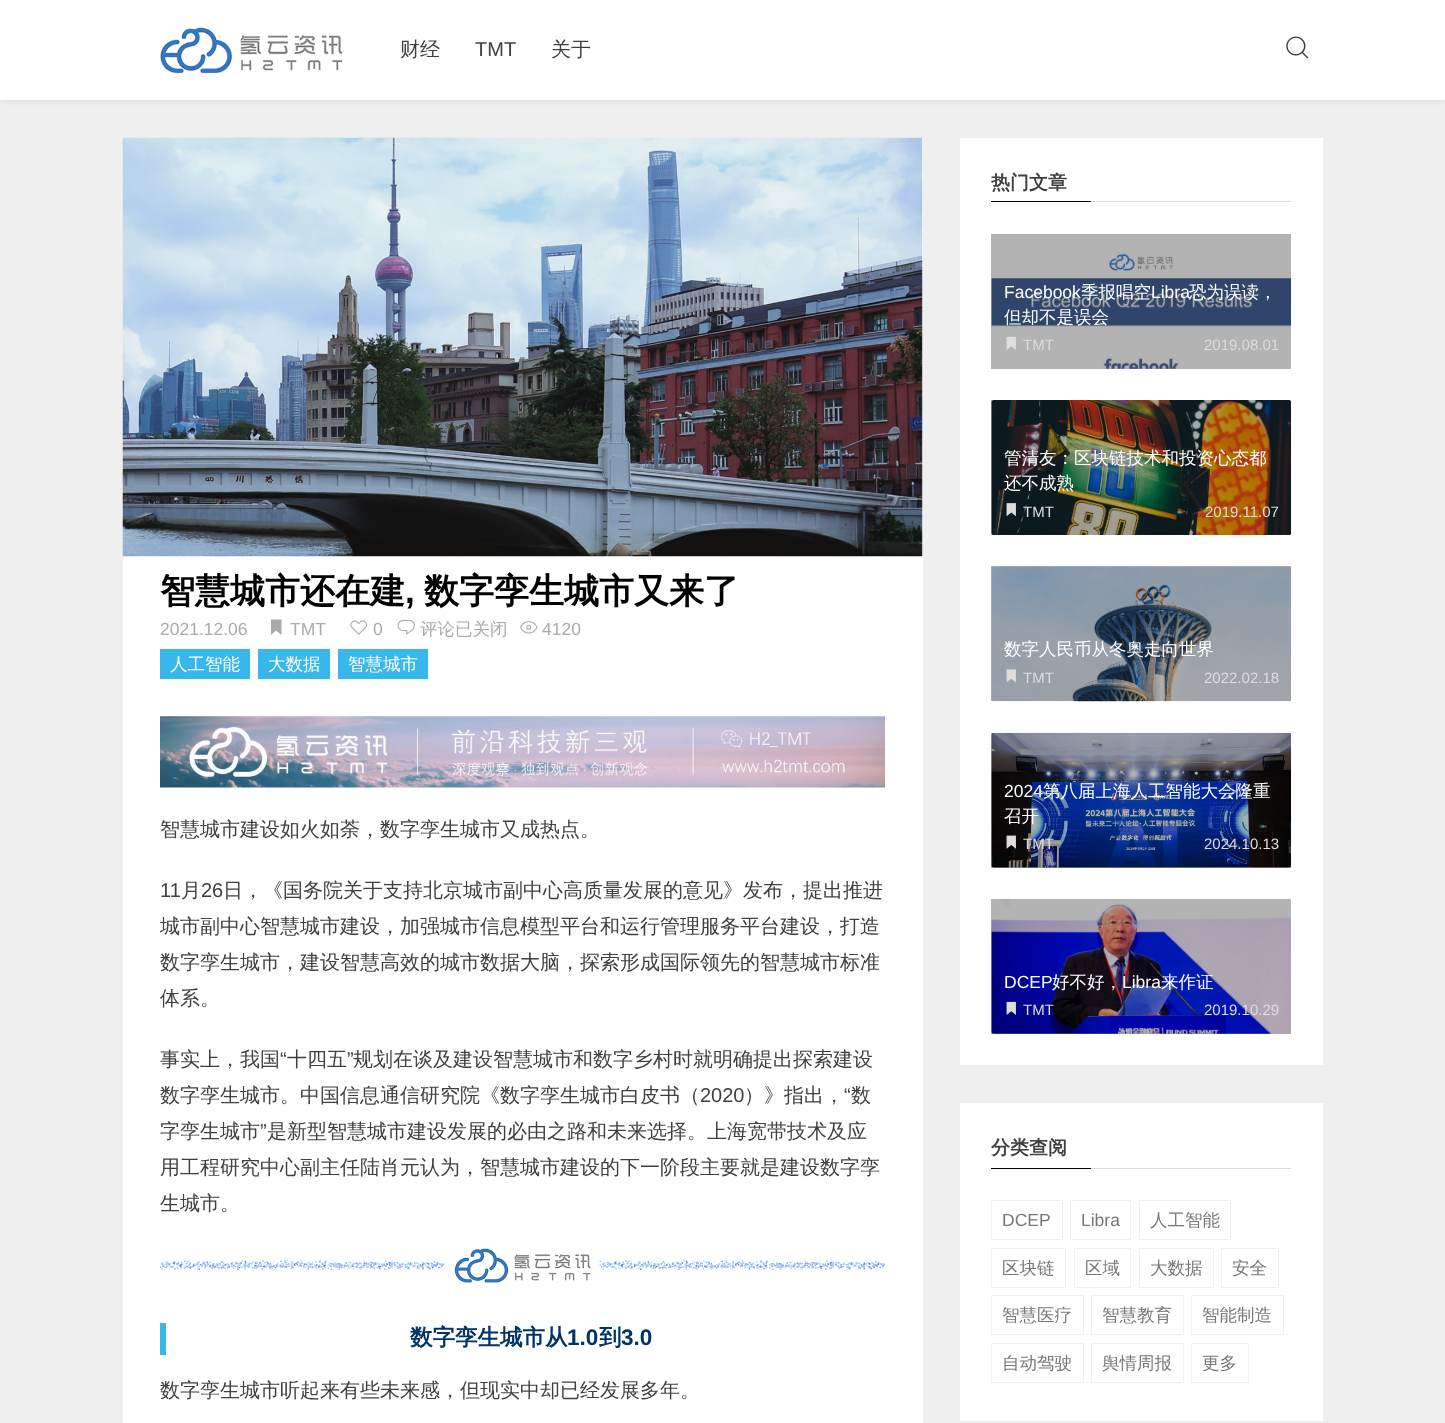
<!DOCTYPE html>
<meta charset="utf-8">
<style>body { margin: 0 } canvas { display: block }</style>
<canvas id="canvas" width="1445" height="1423"></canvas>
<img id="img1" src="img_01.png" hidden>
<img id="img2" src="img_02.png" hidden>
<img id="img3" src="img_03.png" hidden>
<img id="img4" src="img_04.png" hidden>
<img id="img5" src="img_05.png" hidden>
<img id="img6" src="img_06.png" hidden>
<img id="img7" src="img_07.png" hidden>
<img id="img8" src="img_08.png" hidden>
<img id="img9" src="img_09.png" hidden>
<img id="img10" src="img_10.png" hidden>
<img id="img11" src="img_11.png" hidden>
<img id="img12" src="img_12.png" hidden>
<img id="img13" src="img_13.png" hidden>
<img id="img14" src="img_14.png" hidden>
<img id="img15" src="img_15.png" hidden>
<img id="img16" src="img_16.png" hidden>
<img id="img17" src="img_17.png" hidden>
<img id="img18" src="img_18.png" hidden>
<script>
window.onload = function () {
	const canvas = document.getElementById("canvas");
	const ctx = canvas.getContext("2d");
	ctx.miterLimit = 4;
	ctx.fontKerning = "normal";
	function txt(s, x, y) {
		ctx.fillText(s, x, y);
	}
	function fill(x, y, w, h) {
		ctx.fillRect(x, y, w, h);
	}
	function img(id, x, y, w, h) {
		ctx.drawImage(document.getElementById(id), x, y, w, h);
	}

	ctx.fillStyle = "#EFEFEF";
	fill(0, 0, 1445, 1423);
	ctx.fillStyle = "rgba(0, 0, 0, 0.1)";
	ctx.filter = "blur(3px)";
	ctx.beginPath();
	ctx.rect(0, 0, 1445, 100);
	ctx.fill();
	ctx.filter = "none";
	ctx.fillStyle = "#FFFFFF";
	fill(0, 0, 1445, 100);
	img("img1", 160, 27, 183, 47);
	img("img2", 1286, 36, 23, 23);
	fill(123, 138, 800, 1285);
	img("img3", 122, 137, 801, 420);
	ctx.fillStyle = "#AAAAAA";
	ctx.beginPath();
	ctx.moveTo(271, 619.5);
	ctx.lineTo(271, 635);
	ctx.lineTo(276, 630.5);
	ctx.lineTo(281.5, 635);
	ctx.lineTo(281.5, 619.5);
	ctx.closePath();
	ctx.fill();
	img("img4", 350, 620, 18, 15);
	img("img5", 397, 619, 18, 16);
	img("img6", 520, 621, 18, 13);
	ctx.fillStyle = "#38B7EA";
	fill(160, 649, 90, 30);
	fill(258, 649, 72, 30);
	fill(338, 649, 90, 30);
	img("img7", 160, 716, 725, 72);
	img("img8", 160, 1248, 725, 35);
	fill(160, 1323, 6, 32);
	ctx.fillStyle = "#FFFFFF";
	fill(960, 138, 363, 927);
	ctx.fillStyle = "#B3B3B3";
	fill(991, 899, 300, 135);
	fill(991, 733, 300, 135);
	fill(991, 566, 300, 135);
	fill(991, 400, 300, 135);
	fill(991, 234, 300, 135);
	ctx.fillStyle = "#DDDDDD";
	fill(1091, 201, 200, 1);
	ctx.fillStyle = "#000000";
	fill(991, 201, 100, 1);
	img("img9", 991, 253, 300, 116);
	img("img10", 1006, 336, 10, 14);
	img("img11", 991, 400, 300, 135);
	img("img12", 1006, 503, 10, 14);
	img("img13", 991, 566, 300, 136);
	img("img14", 1006, 669, 10, 14);
	img("img15", 991, 732, 300, 136);
	img("img16", 1006, 835, 10, 14);
	img("img17", 991, 899, 300, 135);
	img("img18", 1006, 1001, 10, 14);
	ctx.fillStyle = "#FFFFFF";
	fill(960, 1103, 363, 318);
	ctx.fillStyle = "#DDDDDD";
	fill(1091, 1168, 200, 1);
	ctx.fillStyle = "#000000";
	fill(991, 1168, 100, 1);
	ctx.strokeStyle = "#F0F0F0";
	ctx.strokeRect(991.5, 1200.5, 71, 39);
	ctx.strokeRect(1070.5, 1200.5, 60, 39);
	ctx.strokeRect(1139.5, 1200.5, 91, 39);
	ctx.strokeRect(991.5, 1248.5, 74, 39);
	ctx.strokeRect(1074.5, 1248.5, 56, 39);
	ctx.strokeRect(1139.5, 1248.5, 74, 39);
	ctx.strokeRect(1221.5, 1248.5, 57, 39);
	ctx.strokeRect(991.5, 1295.5, 92, 39);
	ctx.strokeRect(1091.5, 1295.5, 92, 39);
	ctx.strokeRect(1191.5, 1295.5, 92, 39);
	ctx.strokeRect(991.5, 1343.5, 92, 39);
	ctx.strokeRect(1091.5, 1343.5, 92, 39);
	ctx.strokeRect(1191.5, 1343.5, 57, 39);
	ctx.font = "500 20px WenQuanYi Zen Hei";
	ctx.fillStyle = "#3F3F3F";
	txt("财经", 400, 56);
	ctx.font = "20px Liberation Sans";
	txt("TMT", 475, 56);
	ctx.font = "500 20px WenQuanYi Zen Hei";
	txt("关于", 551, 56);
	ctx.font = "bold 35px WenQuanYi Zen Hei";
	ctx.fillStyle = "#000000";
	txt("智慧城市还在建", 160, 603);
	ctx.font = "bold 35px Liberation Sans";
	txt(",", 405, 603);
	ctx.font = "bold 35px WenQuanYi Zen Hei";
	txt("数字孪生城市又来了", 424, 603);
	ctx.font = "17.5px Liberation Sans";
	ctx.fillStyle = "#AAAAAA";
	txt("2021.12.06", 160, 635);
	txt("TMT", 290, 635);
	txt("0", 373, 635);
	ctx.font = "500 17.5px WenQuanYi Zen Hei";
	txt("评论已关闭", 420, 635);
	ctx.font = "17.5px Liberation Sans";
	txt("4120", 542, 635);
	ctx.font = "500 17.5px WenQuanYi Zen Hei";
	ctx.fillStyle = "#FFFFFF";
	txt("人工智能", 170, 670);
	txt("大数据", 268, 670);
	txt("智慧城市", 348, 670);
	ctx.font = "500 20px WenQuanYi Zen Hei";
	ctx.fillStyle = "#3F3F3F";
	txt("智慧城市建设如火如荼，数字孪生城市又成热点。", 160, 836);
	ctx.font = "20px Liberation Sans";
	txt("11", 160, 897);
	ctx.font = "500 20px WenQuanYi Zen Hei";
	txt("月", 181, 897);
	ctx.font = "20px Liberation Sans";
	txt("26", 201, 897);
	ctx.font = "500 20px WenQuanYi Zen Hei";
	txt("日，《国务院关于支持北京城市副中心高质量发展的意见》发布，提出推进", 223, 897);
	txt("城市副中心智慧城市建设，加强城市信息模型平台和运行管理服务平台建设，打造", 160, 933);
	txt("数字孪生城市，建设智慧高效的城市数据大脑，探索形成国际领先的智慧城市标准", 160, 969);
	txt("体系。", 160, 1005);
	txt("事实上，我国", 160, 1066);
	ctx.font = "20px Liberation Sans";
	txt("“", 280, 1066);
	ctx.font = "500 20px WenQuanYi Zen Hei";
	txt("十四五", 287, 1066);
	ctx.font = "20px Liberation Sans";
	txt("”", 347, 1066);
	ctx.font = "500 20px WenQuanYi Zen Hei";
	txt("规划在谈及建设智慧城市和数字乡村时就明确提出探索建设", 353, 1066);
	txt("数字孪生城市。中国信息通信研究院《数字孪生城市白皮书（", 160, 1102);
	ctx.font = "20px Liberation Sans";
	txt("2020", 700, 1102);
	ctx.font = "500 20px WenQuanYi Zen Hei";
	txt("）》指出，", 744, 1102);
	ctx.font = "20px Liberation Sans";
	txt("“", 844, 1102);
	ctx.font = "500 20px WenQuanYi Zen Hei";
	txt("数", 851, 1102);
	txt("字孪生城市", 160, 1138);
	ctx.font = "20px Liberation Sans";
	txt("”", 260, 1138);
	ctx.font = "500 20px WenQuanYi Zen Hei";
	txt("是新型智慧城市建设发展的必由之路和未来选择。上海宽带技术及应", 267, 1138);
	txt("用工程研究中心副主任陆肖元认为，智慧城市建设的下一阶段主要就是建设数字孪", 160, 1174);
	txt("生城市。", 160, 1210);
	ctx.font = "bold 22.5px WenQuanYi Zen Hei";
	ctx.fillStyle = "#003366";
	txt("数字孪生城市从", 410, 1345);
	ctx.font = "bold 22.5px Liberation Sans";
	txt("1.0", 567, 1345);
	ctx.font = "bold 22.5px WenQuanYi Zen Hei";
	txt("到", 599, 1345);
	ctx.font = "bold 22.5px Liberation Sans";
	txt("3.0", 621, 1345);
	ctx.font = "500 20px WenQuanYi Zen Hei";
	ctx.fillStyle = "#3F3F3F";
	txt("数字孪生城市听起来有些未来感，但现实中却已经发展多年。", 160, 1397);
	ctx.font = "bold 19px WenQuanYi Zen Hei";
	txt("热门文章", 991, 189);
	ctx.font = "17.5px Liberation Sans";
	ctx.fillStyle = "#FFFFFF";
	txt("Facebook", 1004, 298);
	ctx.font = "500 17.5px WenQuanYi Zen Hei";
	txt("季报唱空", 1081, 298);
	ctx.font = "17.5px Liberation Sans";
	txt("Libra", 1151, 298);
	ctx.font = "500 17.5px WenQuanYi Zen Hei";
	txt("恐为误读，", 1189, 298);
	txt("但却不是误会", 1004, 323);
	ctx.font = "15px Liberation Sans";
	ctx.fillStyle = "#DDDDDD";
	txt("TMT", 1023, 350);
	txt("2019.08.01", 1204, 350);
	ctx.font = "500 17.5px WenQuanYi Zen Hei";
	ctx.fillStyle = "#FFFFFF";
	txt("管清友：区块链技术和投资心态都", 1004, 464);
	txt("还不成熟", 1004, 489);
	ctx.font = "15px Liberation Sans";
	ctx.fillStyle = "#DDDDDD";
	txt("TMT", 1023, 517);
	txt("2019.11.07", 1205, 517);
	ctx.font = "500 17.5px WenQuanYi Zen Hei";
	ctx.fillStyle = "#FFFFFF";
	txt("数字人民币从冬奥走向世界", 1004, 655);
	ctx.font = "15px Liberation Sans";
	ctx.fillStyle = "#DDDDDD";
	txt("TMT", 1023, 683);
	txt("2022.02.18", 1204, 683);
	ctx.font = "17.5px Liberation Sans";
	ctx.fillStyle = "#FFFFFF";
	txt("2024", 1004, 797);
	ctx.font = "500 17.5px WenQuanYi Zen Hei";
	txt("第八届上海人工智能大会隆重", 1043, 797);
	txt("召开", 1004, 822);
	ctx.font = "15px Liberation Sans";
	ctx.fillStyle = "#DDDDDD";
	txt("TMT", 1023, 849);
	txt("2024.10.13", 1204, 849);
	ctx.font = "17.5px Liberation Sans";
	ctx.fillStyle = "#FFFFFF";
	txt("DCEP", 1004, 988);
	ctx.font = "500 17.5px WenQuanYi Zen Hei";
	txt("好不好，", 1052, 988);
	ctx.font = "17.5px Liberation Sans";
	txt("Libra", 1122, 988);
	ctx.font = "500 17.5px WenQuanYi Zen Hei";
	txt("来作证", 1161, 988);
	ctx.font = "15px Liberation Sans";
	ctx.fillStyle = "#DDDDDD";
	txt("TMT", 1023, 1015);
	txt("2019.10.29", 1204, 1015);
	ctx.font = "bold 19px WenQuanYi Zen Hei";
	ctx.fillStyle = "#3F3F3F";
	txt("分类查阅", 991, 1154);
	ctx.font = "17.5px Liberation Sans";
	ctx.fillStyle = "#777777";
	txt("DCEP", 1002, 1226);
	txt("Libra", 1081, 1226);
	ctx.font = "500 17.5px WenQuanYi Zen Hei";
	txt("人工智能", 1150, 1226);
	txt("区块链", 1002, 1274);
	txt("区域", 1085, 1274);
	txt("大数据", 1150, 1274);
	txt("安全", 1232, 1274);
	txt("智慧医疗", 1002, 1321);
	txt("智慧教育", 1102, 1321);
	txt("智能制造", 1202, 1321);
	txt("自动驾驶", 1002, 1369);
	txt("舆情周报", 1102, 1369);
	txt("更多", 1202, 1369);
};
</script>
